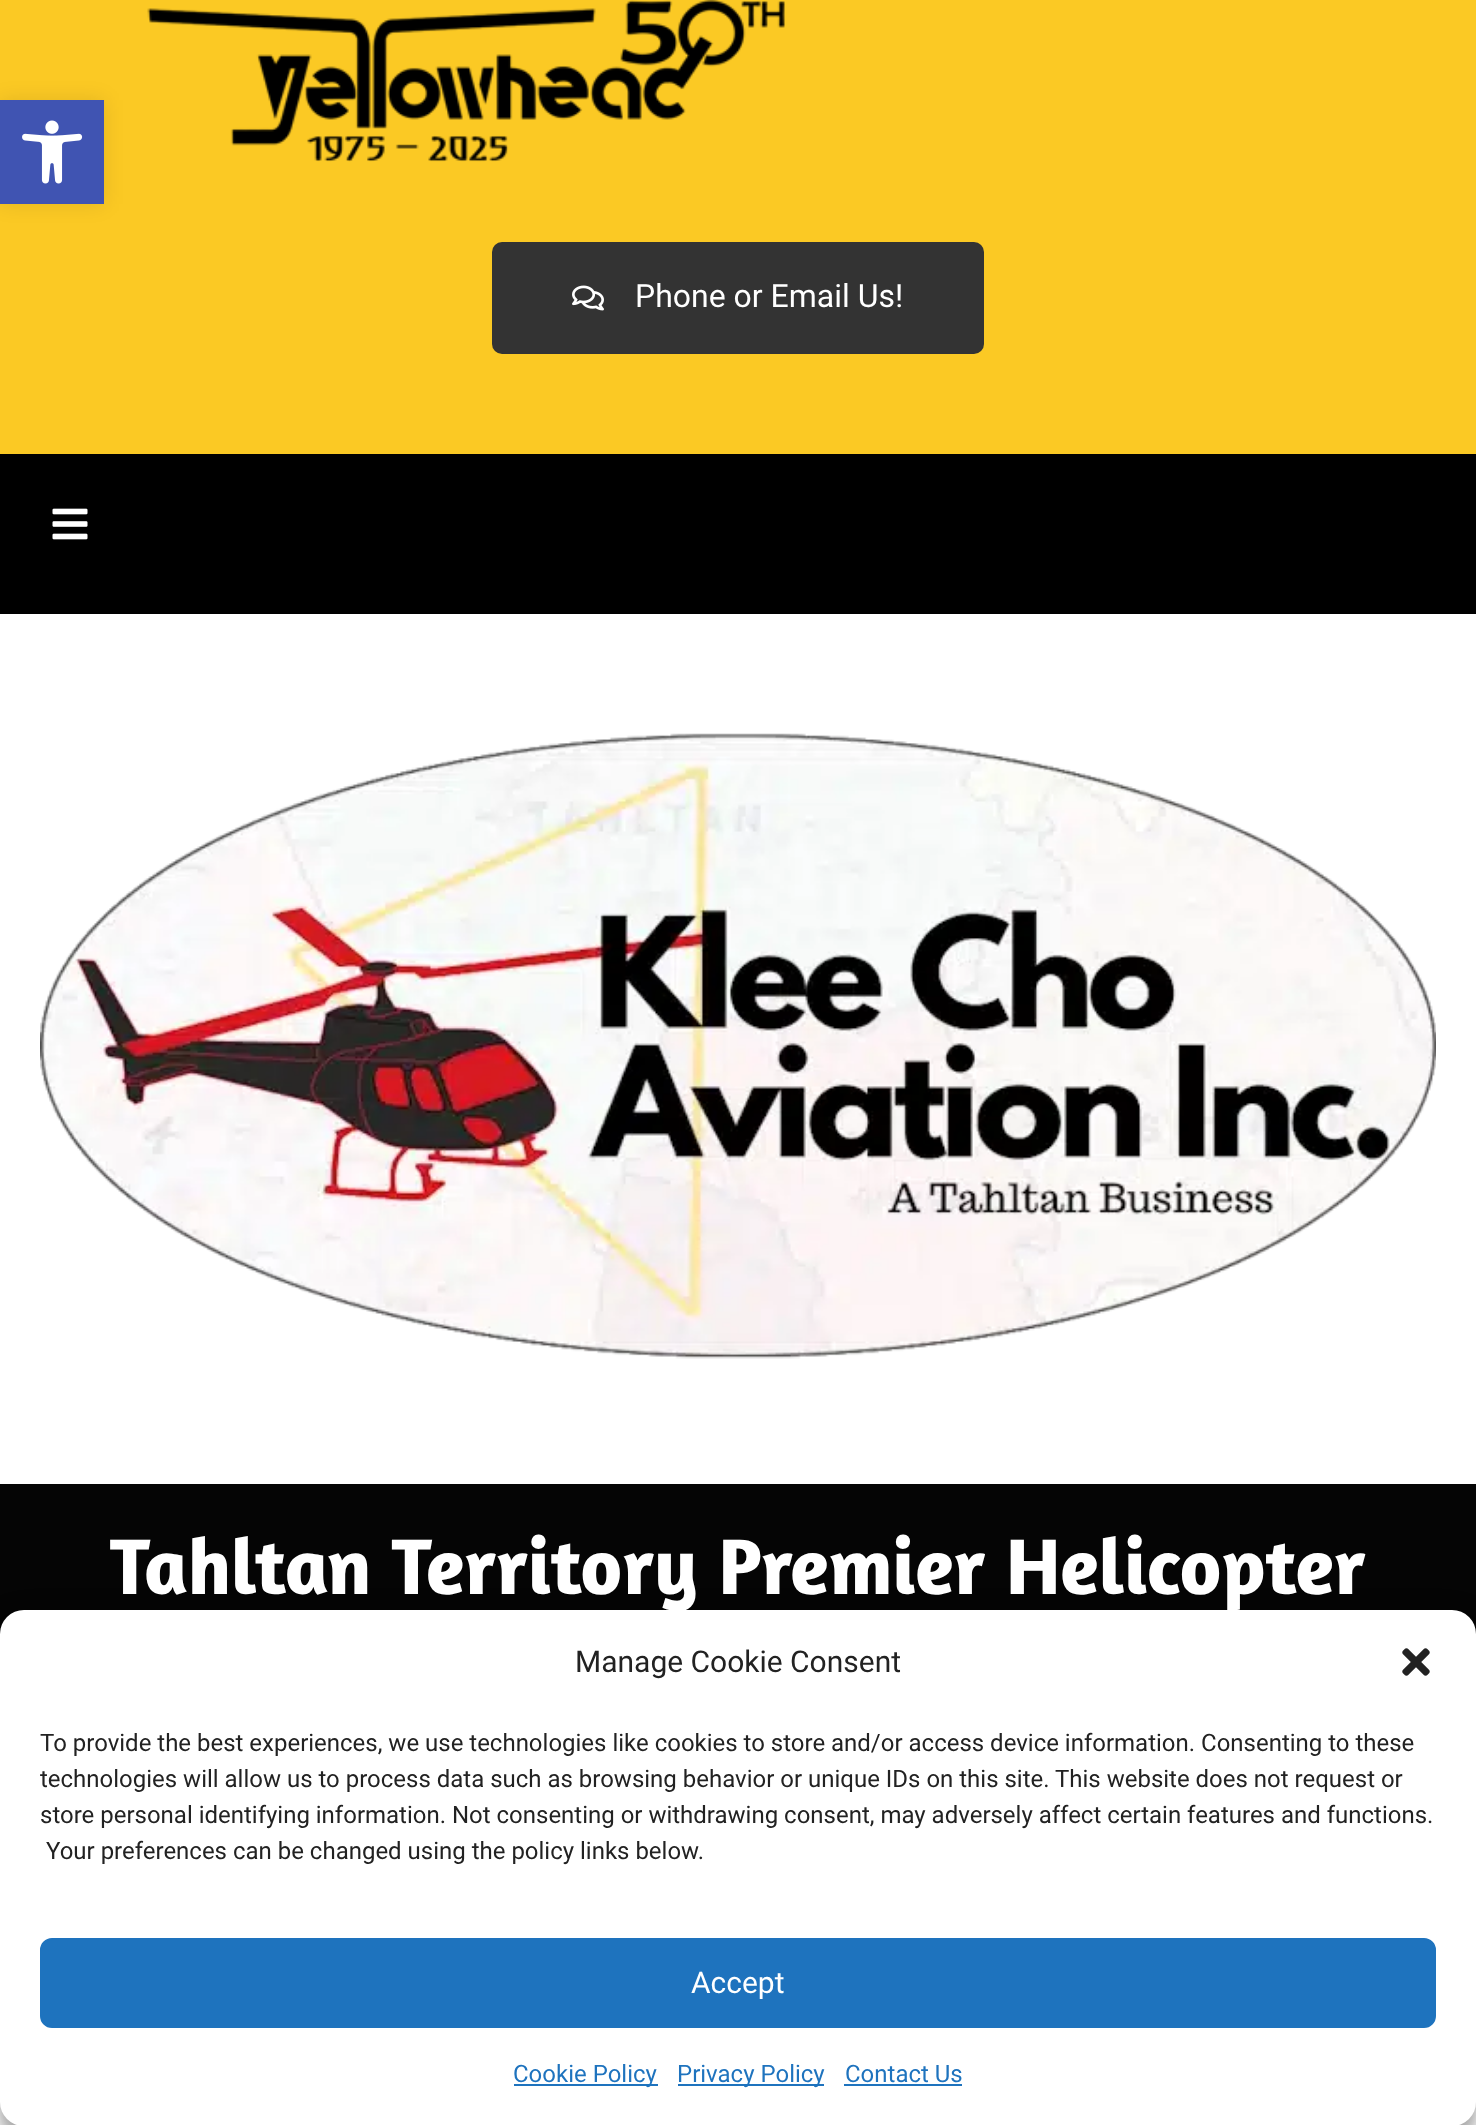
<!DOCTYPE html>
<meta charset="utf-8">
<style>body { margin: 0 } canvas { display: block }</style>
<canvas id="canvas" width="1476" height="2125"></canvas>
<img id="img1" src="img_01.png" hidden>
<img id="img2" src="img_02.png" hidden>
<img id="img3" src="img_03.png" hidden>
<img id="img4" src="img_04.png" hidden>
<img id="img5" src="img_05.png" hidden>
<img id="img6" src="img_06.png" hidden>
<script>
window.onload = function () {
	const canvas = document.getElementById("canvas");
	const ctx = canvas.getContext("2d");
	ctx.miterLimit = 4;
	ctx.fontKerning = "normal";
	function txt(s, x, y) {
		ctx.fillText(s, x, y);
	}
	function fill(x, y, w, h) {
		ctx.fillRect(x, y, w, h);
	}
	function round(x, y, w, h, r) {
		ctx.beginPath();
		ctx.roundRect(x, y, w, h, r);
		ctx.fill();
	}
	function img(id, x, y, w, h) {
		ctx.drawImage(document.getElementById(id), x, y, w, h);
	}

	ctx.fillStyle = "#FFFFFF";
	fill(0, 0, 1476, 2125);
	ctx.fillStyle = "#FBC924";
	fill(0, 0, 1476, 454);
	ctx.fillStyle = "rgba(0, 0, 0, 0.1)";
	ctx.filter = "blur(10px)";
	ctx.beginPath();
	ctx.rect(0, 100, 104, 104);
	ctx.fill();
	ctx.filter = "none";
	ctx.fillStyle = "#4054B2";
	fill(0, 100, 104, 104);
	img("img1", 22, 120, 61, 64);
	img("img2", 147, 0, 638, 162);
	ctx.fillStyle = "#333333";
	round(492, 242, 492, 112, 10);
	img("img3", 572, 285, 32, 26);
	ctx.fillStyle = "#000000";
	fill(0, 454, 1476, 160);
	img("img4", 52, 508, 36, 32);
	img("img5", 40, 733, 1396, 626);
	ctx.fillStyle = "#050505";
	fill(0, 1484, 1476, 150);
	ctx.fillStyle = "rgba(0, 0, 0, 0.23)";
	ctx.filter = "blur(6px)";
	ctx.beginPath();
	ctx.roundRect(0, 1622, 1476, 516, 24);
	ctx.fill();
	ctx.filter = "none";
	ctx.fillStyle = "rgba(0, 0, 0, 0.19)";
	ctx.filter = "blur(20px)";
	ctx.beginPath();
	ctx.roundRect(0, 1630, 1476, 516, 24);
	ctx.fill();
	ctx.filter = "none";
	ctx.fillStyle = "#FFFFFF";
	round(0, 1610, 1476, 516, 24);
	img("img6", 1402, 1648, 28, 28);
	ctx.fillStyle = "#1E73BE";
	ctx.beginPath();
	ctx.roundRect(41, 1939, 1394, 88, 11);
	ctx.fill();
	ctx.strokeStyle = "#1E73BE";
	ctx.lineWidth = 2;
	ctx.stroke();
	fill(514, 2084, 144, 2);
	fill(678, 2084, 146, 2);
	fill(844, 2084, 118, 2);
	ctx.font = "32px Roboto";
	ctx.fillStyle = "#FFFFFF";
	txt("Phone or Email Us!", 635, 307);
	ctx.font = "bold 80px Amaranth";
	txt("Tahltan Territory Premier Helicopter", 110, 1594);
	ctx.font = "30px Roboto";
	ctx.fillStyle = "#222222";
	txt("Manage Cookie Consent", 575, 1672);
	ctx.font = "24px Roboto";
	txt("To provide the best experiences, we use technologies like cookies to store and/or access device information. Consenting to these", 40, 1751);
	txt("technologies will allow us to process data such as browsing behavior or unique IDs on this site. This website does not request or", 40, 1787);
	txt("store personal identifying information. Not consenting or withdrawing consent, may adversely affect certain features and functions.", 40, 1823);
	txt("Your preferences can be changed using the policy links below.", 46, 1859);
	ctx.font = "30px Roboto";
	ctx.fillStyle = "#FFFFFF";
	txt("Accept", 691, 1993);
	ctx.font = "24px Roboto";
	ctx.fillStyle = "#1E73BE";
	txt("Cookie Policy", 513, 2082);
	txt("Privacy Policy", 677, 2082);
	txt("Contact Us", 845, 2082);
};
</script>
